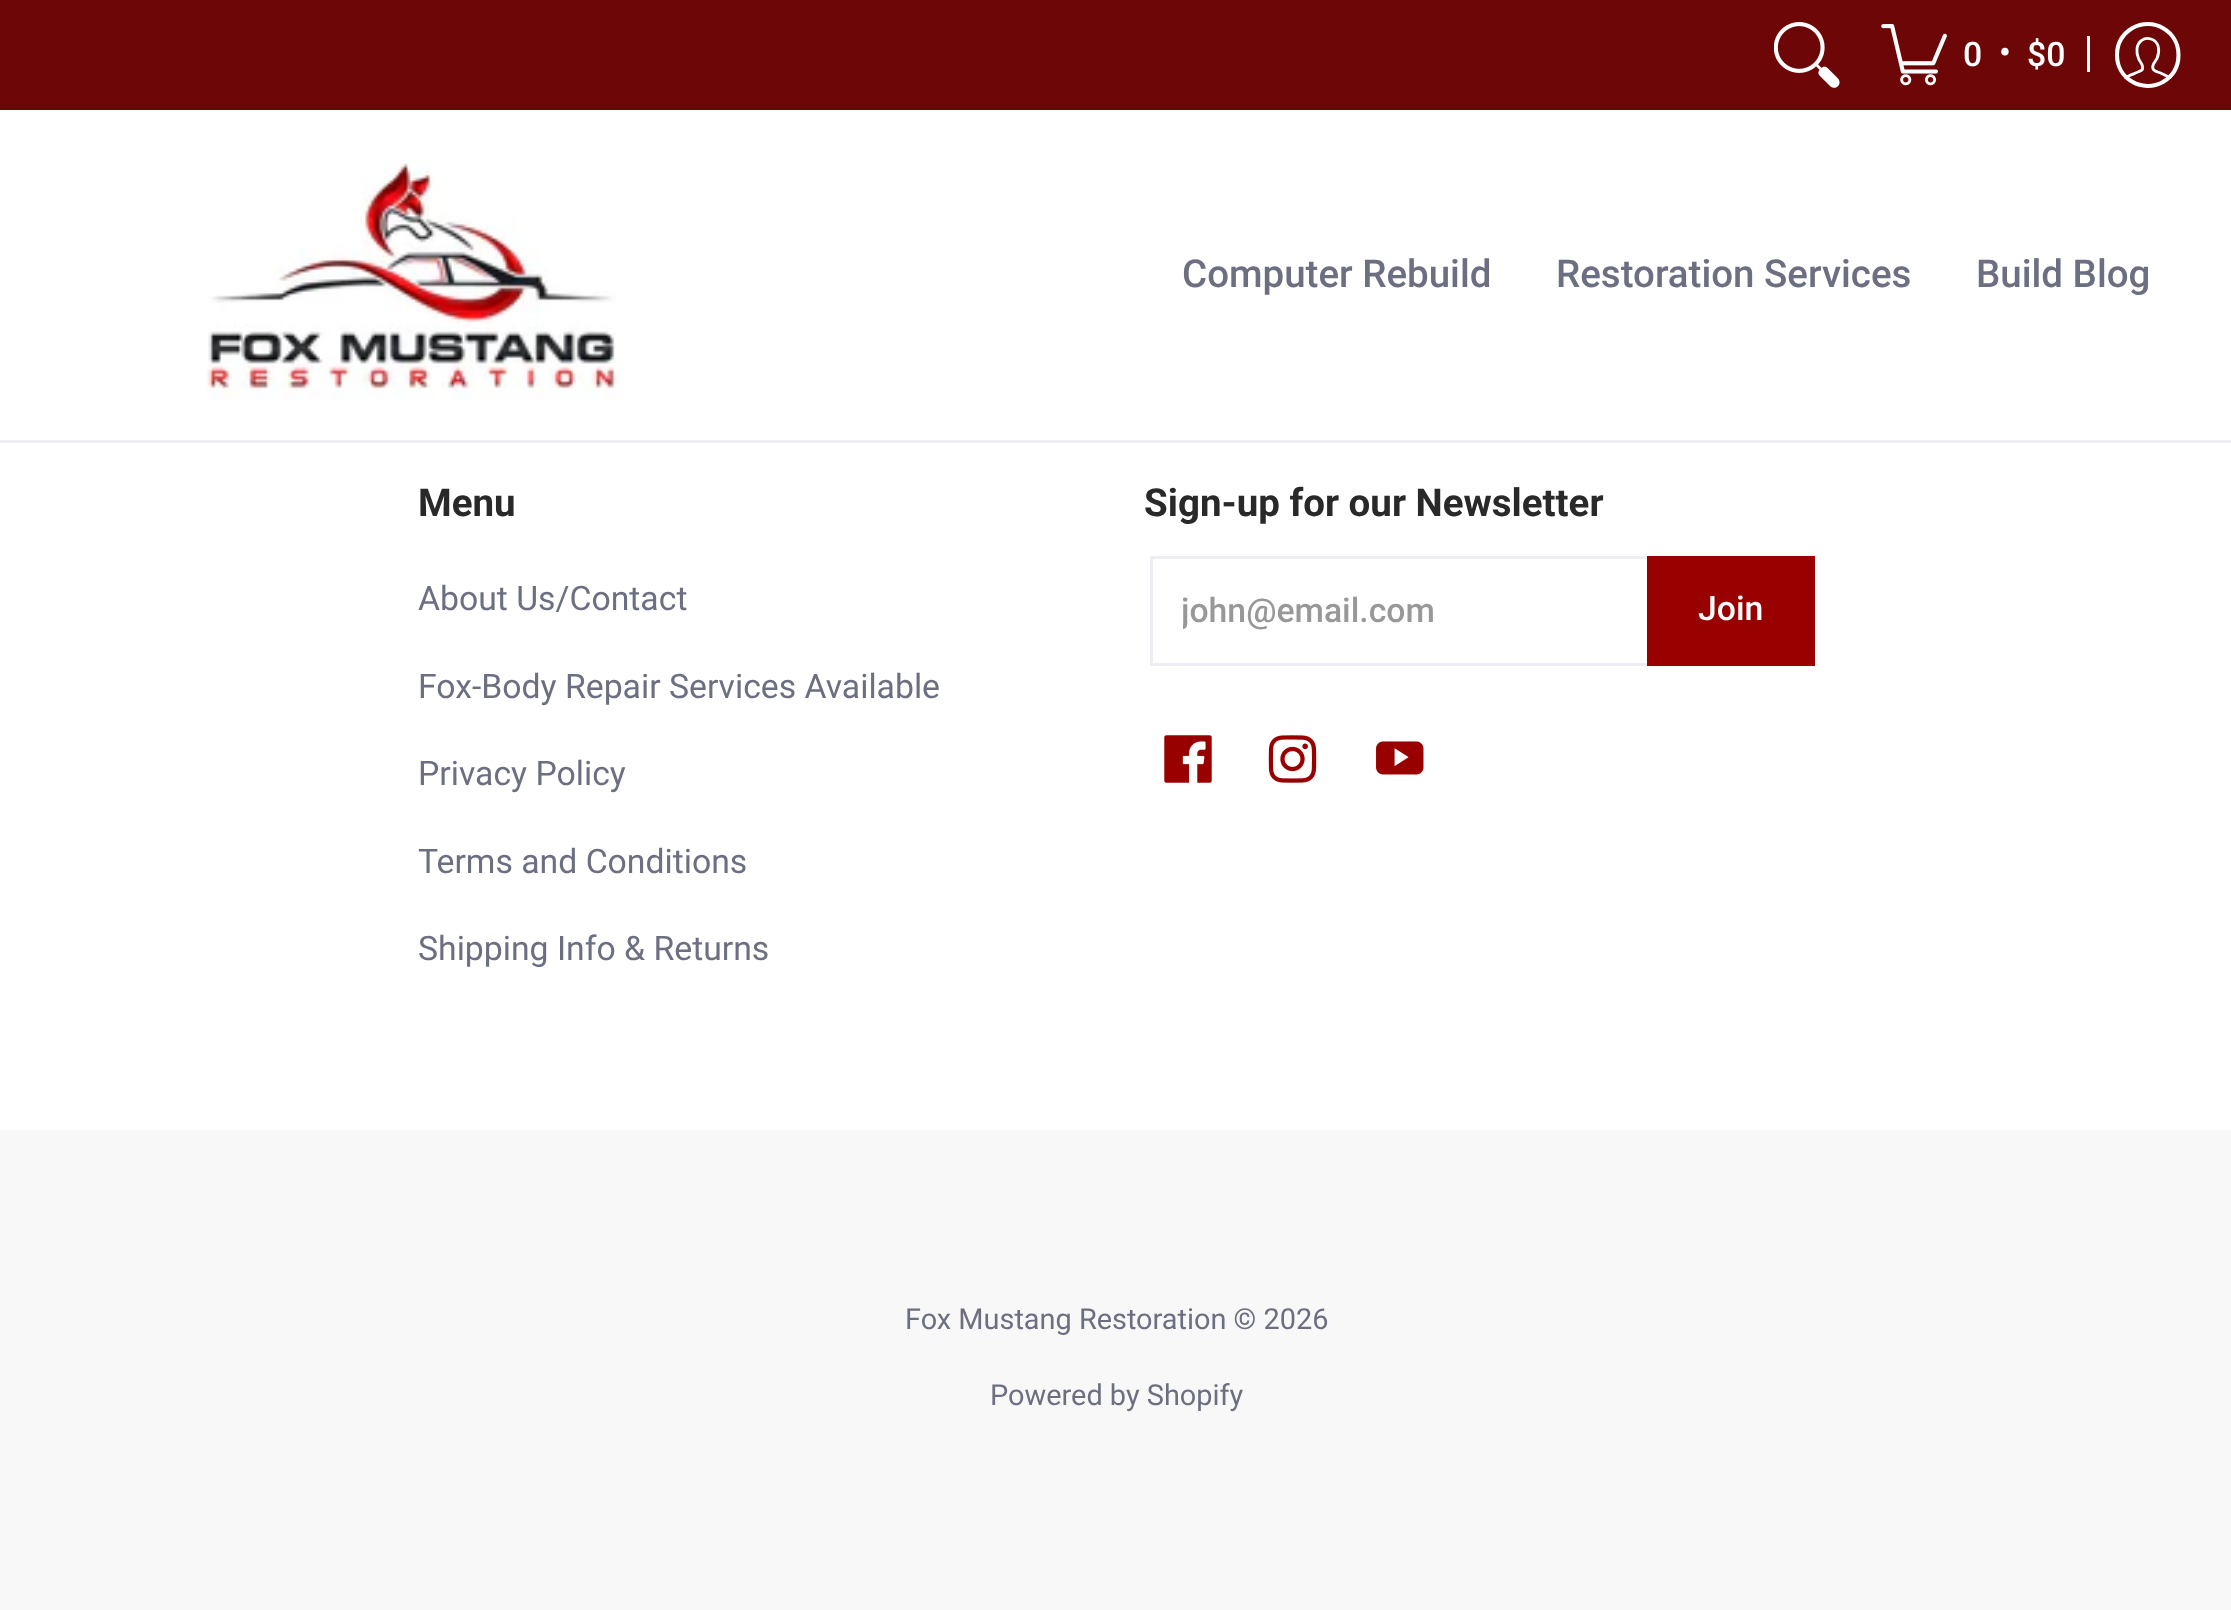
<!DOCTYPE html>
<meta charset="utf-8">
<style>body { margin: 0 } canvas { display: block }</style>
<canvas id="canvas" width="2231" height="1610"></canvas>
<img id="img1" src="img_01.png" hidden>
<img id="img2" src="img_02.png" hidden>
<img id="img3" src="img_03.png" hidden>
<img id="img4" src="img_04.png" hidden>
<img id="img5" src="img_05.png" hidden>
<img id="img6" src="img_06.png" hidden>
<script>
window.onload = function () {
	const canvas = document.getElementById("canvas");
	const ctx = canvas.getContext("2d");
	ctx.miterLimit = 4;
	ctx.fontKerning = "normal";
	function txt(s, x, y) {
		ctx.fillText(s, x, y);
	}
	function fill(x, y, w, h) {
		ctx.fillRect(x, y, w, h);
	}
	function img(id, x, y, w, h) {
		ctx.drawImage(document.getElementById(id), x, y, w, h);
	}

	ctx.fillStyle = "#FFFFFF";
	fill(0, 0, 2231, 1610);
	ctx.fillStyle = "#6D0707";
	fill(0, 0, 2231, 110);
	img("img1", 1774, 22, 66, 66);
	img("img2", 1881, 24, 66, 62);
	ctx.fillStyle = "#FFFFFF";
	fill(2087, 36, 3, 36);
	ctx.beginPath();
	ctx.moveTo(2117, 55);
	ctx.bezierCurveTo(2117, 79, 2142.5, 93.5, 2163, 82);
	ctx.bezierCurveTo(2173, 76, 2178.5, 66, 2178.5, 55);
	ctx.bezierCurveTo(2178.5, 31, 2153, 16.5, 2132.5, 28);
	ctx.bezierCurveTo(2122.5, 34, 2117, 44, 2117, 55);
	ctx.closePath();
	ctx.strokeStyle = "#FFFFFF";
	ctx.lineWidth = 4.1;
	ctx.lineCap = "round";
	ctx.lineJoin = "round";
	ctx.stroke();
	ctx.beginPath();
	ctx.moveTo(2125.5, 77.5);
	ctx.bezierCurveTo(2128, 76, 2141, 71, 2142, 70);
	ctx.bezierCurveTo(2144.5, 65, 2140, 62.5, 2138.5, 58.5);
	ctx.bezierCurveTo(2136, 52.5, 2136, 44.5, 2141.5, 40.5);
	ctx.bezierCurveTo(2144, 38.5, 2148, 38, 2151, 39);
	ctx.bezierCurveTo(2159.5, 41.5, 2160, 51.5, 2157, 58.5);
	ctx.lineTo(2153.5, 64);
	ctx.bezierCurveTo(2150.5, 70.5, 2156.5, 71.5, 2160.5, 73);
	ctx.lineTo(2170, 77.5);
	ctx.lineWidth = 2.8;
	ctx.stroke();
	ctx.fillStyle = "#EDEEF4";
	fill(0, 440, 2231, 3);
	img("img3", 206, 160, 413, 241);
	ctx.strokeStyle = "#EDEEF4";
	ctx.lineWidth = 3;
	ctx.lineJoin = "miter";
	ctx.strokeRect(1151.5, 557.5, 500, 107);
	ctx.fillStyle = "#990000";
	fill(1647, 556, 168, 110);
	img("img4", 1164, 735, 48, 48);
	img("img5", 1268, 735, 49, 48);
	img("img6", 1376, 741, 48, 34);
	ctx.fillStyle = "#F8F8F8";
	fill(0, 1130, 2231, 480);
	ctx.font = "500 33.75px Roboto";
	ctx.fillStyle = "#FFFFFF";
	txt("0", 1963, 66);
	txt("•", 1999, 64);
	txt("$0", 2027, 66);
	ctx.font = "500 38.5px Roboto";
	ctx.fillStyle = "#6B6F81";
	txt("Computer Rebuild", 1182, 287);
	txt("Restoration Services", 1556, 287);
	txt("Build Blog", 1976, 287);
	ctx.font = "bold 38.5px Roboto";
	ctx.fillStyle = "#292929";
	txt("Menu", 418, 516);
	ctx.font = "33.75px Roboto";
	ctx.fillStyle = "#6B6F81";
	txt("About Us/Contact", 418, 610);
	txt("Fox-Body Repair Services Available", 418, 698);
	txt("Privacy Policy", 418, 785);
	txt("Terms and Conditions", 418, 873);
	txt("Shipping Info & Returns", 418, 960);
	ctx.font = "bold 38.5px Roboto";
	ctx.fillStyle = "#292929";
	txt("Sign-up for our Newsletter", 1144, 516);
	ctx.save();
	ctx.beginPath();
	ctx.rect(1183, 591, 437, 39);
	ctx.clip();
	ctx.font = "500 33.75px Roboto";
	ctx.fillStyle = "#989898";
	txt("john@email.com", 1181, 622);
	ctx.restore();
	ctx.font = "500 33.75px Roboto";
	ctx.fillStyle = "#FFFFFF";
	txt("Join", 1698, 620);
	ctx.font = "28.9px Roboto";
	ctx.fillStyle = "#6B6F81";
	txt("Fox Mustang Restoration © 2026", 905, 1329);
	txt("Powered by Shopify", 990, 1405);
};
</script>
